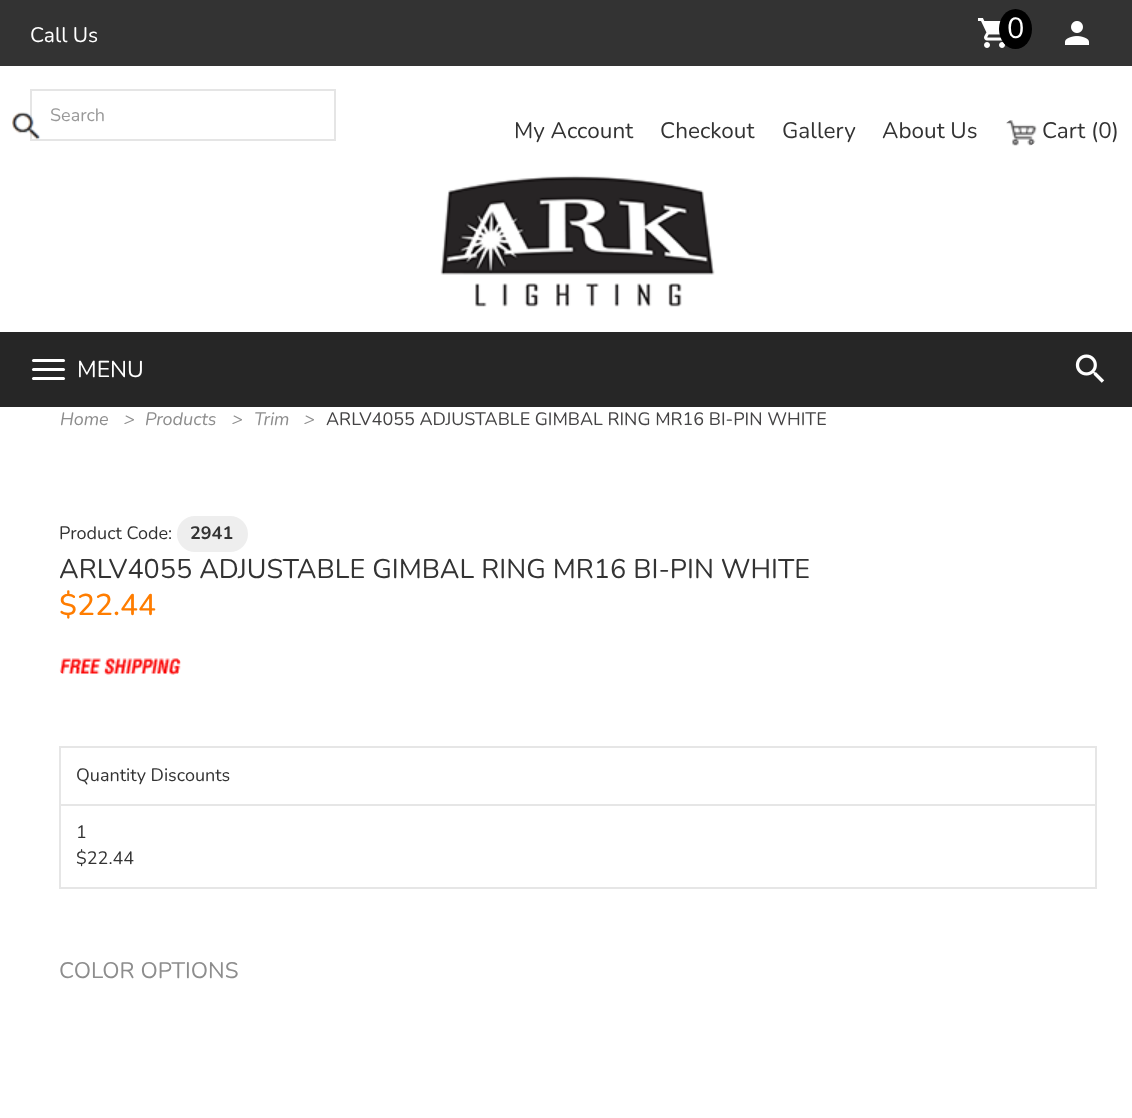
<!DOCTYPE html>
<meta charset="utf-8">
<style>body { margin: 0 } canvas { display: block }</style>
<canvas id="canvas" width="1132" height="1118"></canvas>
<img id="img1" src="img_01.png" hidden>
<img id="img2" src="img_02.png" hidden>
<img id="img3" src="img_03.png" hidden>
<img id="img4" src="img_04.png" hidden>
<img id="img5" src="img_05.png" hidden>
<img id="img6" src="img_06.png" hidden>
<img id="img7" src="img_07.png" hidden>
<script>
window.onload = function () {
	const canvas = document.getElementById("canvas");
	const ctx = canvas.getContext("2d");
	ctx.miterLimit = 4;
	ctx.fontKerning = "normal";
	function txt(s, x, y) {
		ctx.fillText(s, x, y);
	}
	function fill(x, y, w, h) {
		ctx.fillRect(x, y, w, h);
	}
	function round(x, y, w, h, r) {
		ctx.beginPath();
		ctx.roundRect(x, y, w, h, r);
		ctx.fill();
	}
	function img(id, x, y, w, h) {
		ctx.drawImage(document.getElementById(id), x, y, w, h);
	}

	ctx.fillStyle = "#FFFFFF";
	fill(0, 0, 1132, 1118);
	ctx.fillStyle = "#333333";
	fill(0, 0, 1132, 66);
	img("img1", 977, 18, 28, 30);
	ctx.fillStyle = "#000000";
	ctx.beginPath();
	ctx.ellipse(1015.5, 29, 16.5, 20, 0, 0, Math.PI * 2);
	ctx.fill();
	img("img2", 1064, 21, 26, 24);
	ctx.strokeStyle = "#E5E5E5";
	ctx.lineWidth = 2;
	ctx.strokeRect(31, 90, 304, 50);
	img("img3", 12, 112, 29, 28);
	img("img4", 1006, 120, 31, 26);
	img("img5", 440, 175, 275, 132);
	ctx.fillStyle = "#262626";
	fill(0, 332, 1132, 75);
	ctx.fillStyle = "#FFFFFF";
	round(32, 359, 33, 3, 1.5);
	round(32, 368, 33, 3, 1.5);
	round(32, 377, 33, 3, 1.5);
	img("img6", 1075, 354, 30, 29);
	ctx.fillStyle = "#EEEEEE";
	round(177, 516, 71, 36, 18);
	img("img7", 59, 658, 122, 17);
	ctx.fillStyle = "#E6E6E6";
	fill(59, 746, 1038, 2);
	fill(1095, 746, 2, 142);
	fill(59, 887, 1038, 2);
	fill(59, 746, 2, 142);
	fill(59, 804, 1038, 2);
	ctx.font = "21px Nunito";
	ctx.fillStyle = "#FFFFFF";
	txt("Call Us", 30, 42);
	ctx.font = "29px Nunito";
	txt("0", 1007, 38);
	ctx.font = "18px Nunito";
	ctx.fillStyle = "#999999";
	txt("Search", 50, 121);
	ctx.font = "22.5px Nunito";
	ctx.fillStyle = "#333333";
	txt("My Account", 514, 138);
	txt("Checkout", 660, 138);
	txt("Gallery", 782, 138);
	txt("About Us", 882, 138);
	txt("Cart (0)", 1042, 138);
	ctx.font = "23px Nunito";
	ctx.fillStyle = "#FFFFFF";
	txt("MENU", 77, 377);
	ctx.font = "italic 18px Nunito";
	ctx.fillStyle = "#8D8D8D";
	txt("Home", 60, 425);
	txt(">", 124, 425);
	txt("Products", 145, 425);
	txt(">", 232, 425);
	txt("Trim", 254, 425);
	txt(">", 304, 425);
	ctx.font = "18px Nunito";
	ctx.fillStyle = "#444344";
	txt("ARLV4055 ADJUSTABLE GIMBAL RING MR16 BI-PIN WHITE", 326, 425);
	ctx.fillStyle = "#333333";
	txt("Product Code:", 59, 539);
	ctx.font = "bold 18px Nunito";
	txt("2941", 190, 539);
	ctx.font = "27px Nunito";
	txt("ARLV4055 ADJUSTABLE GIMBAL RING MR16 BI-PIN WHITE", 59, 578);
	ctx.font = "500 30px Nunito";
	ctx.fillStyle = "#FF7D00";
	txt("$22.44", 59, 615);
	ctx.font = "18px Nunito";
	ctx.fillStyle = "#333333";
	txt("Quantity Discounts", 76, 781);
	txt("1", 76, 838);
	txt("$22.44", 76, 864);
	ctx.font = "22.5px Nunito";
	ctx.fillStyle = "#8D8D8D";
	txt("COLOR OPTIONS", 59, 978);
};
</script>
